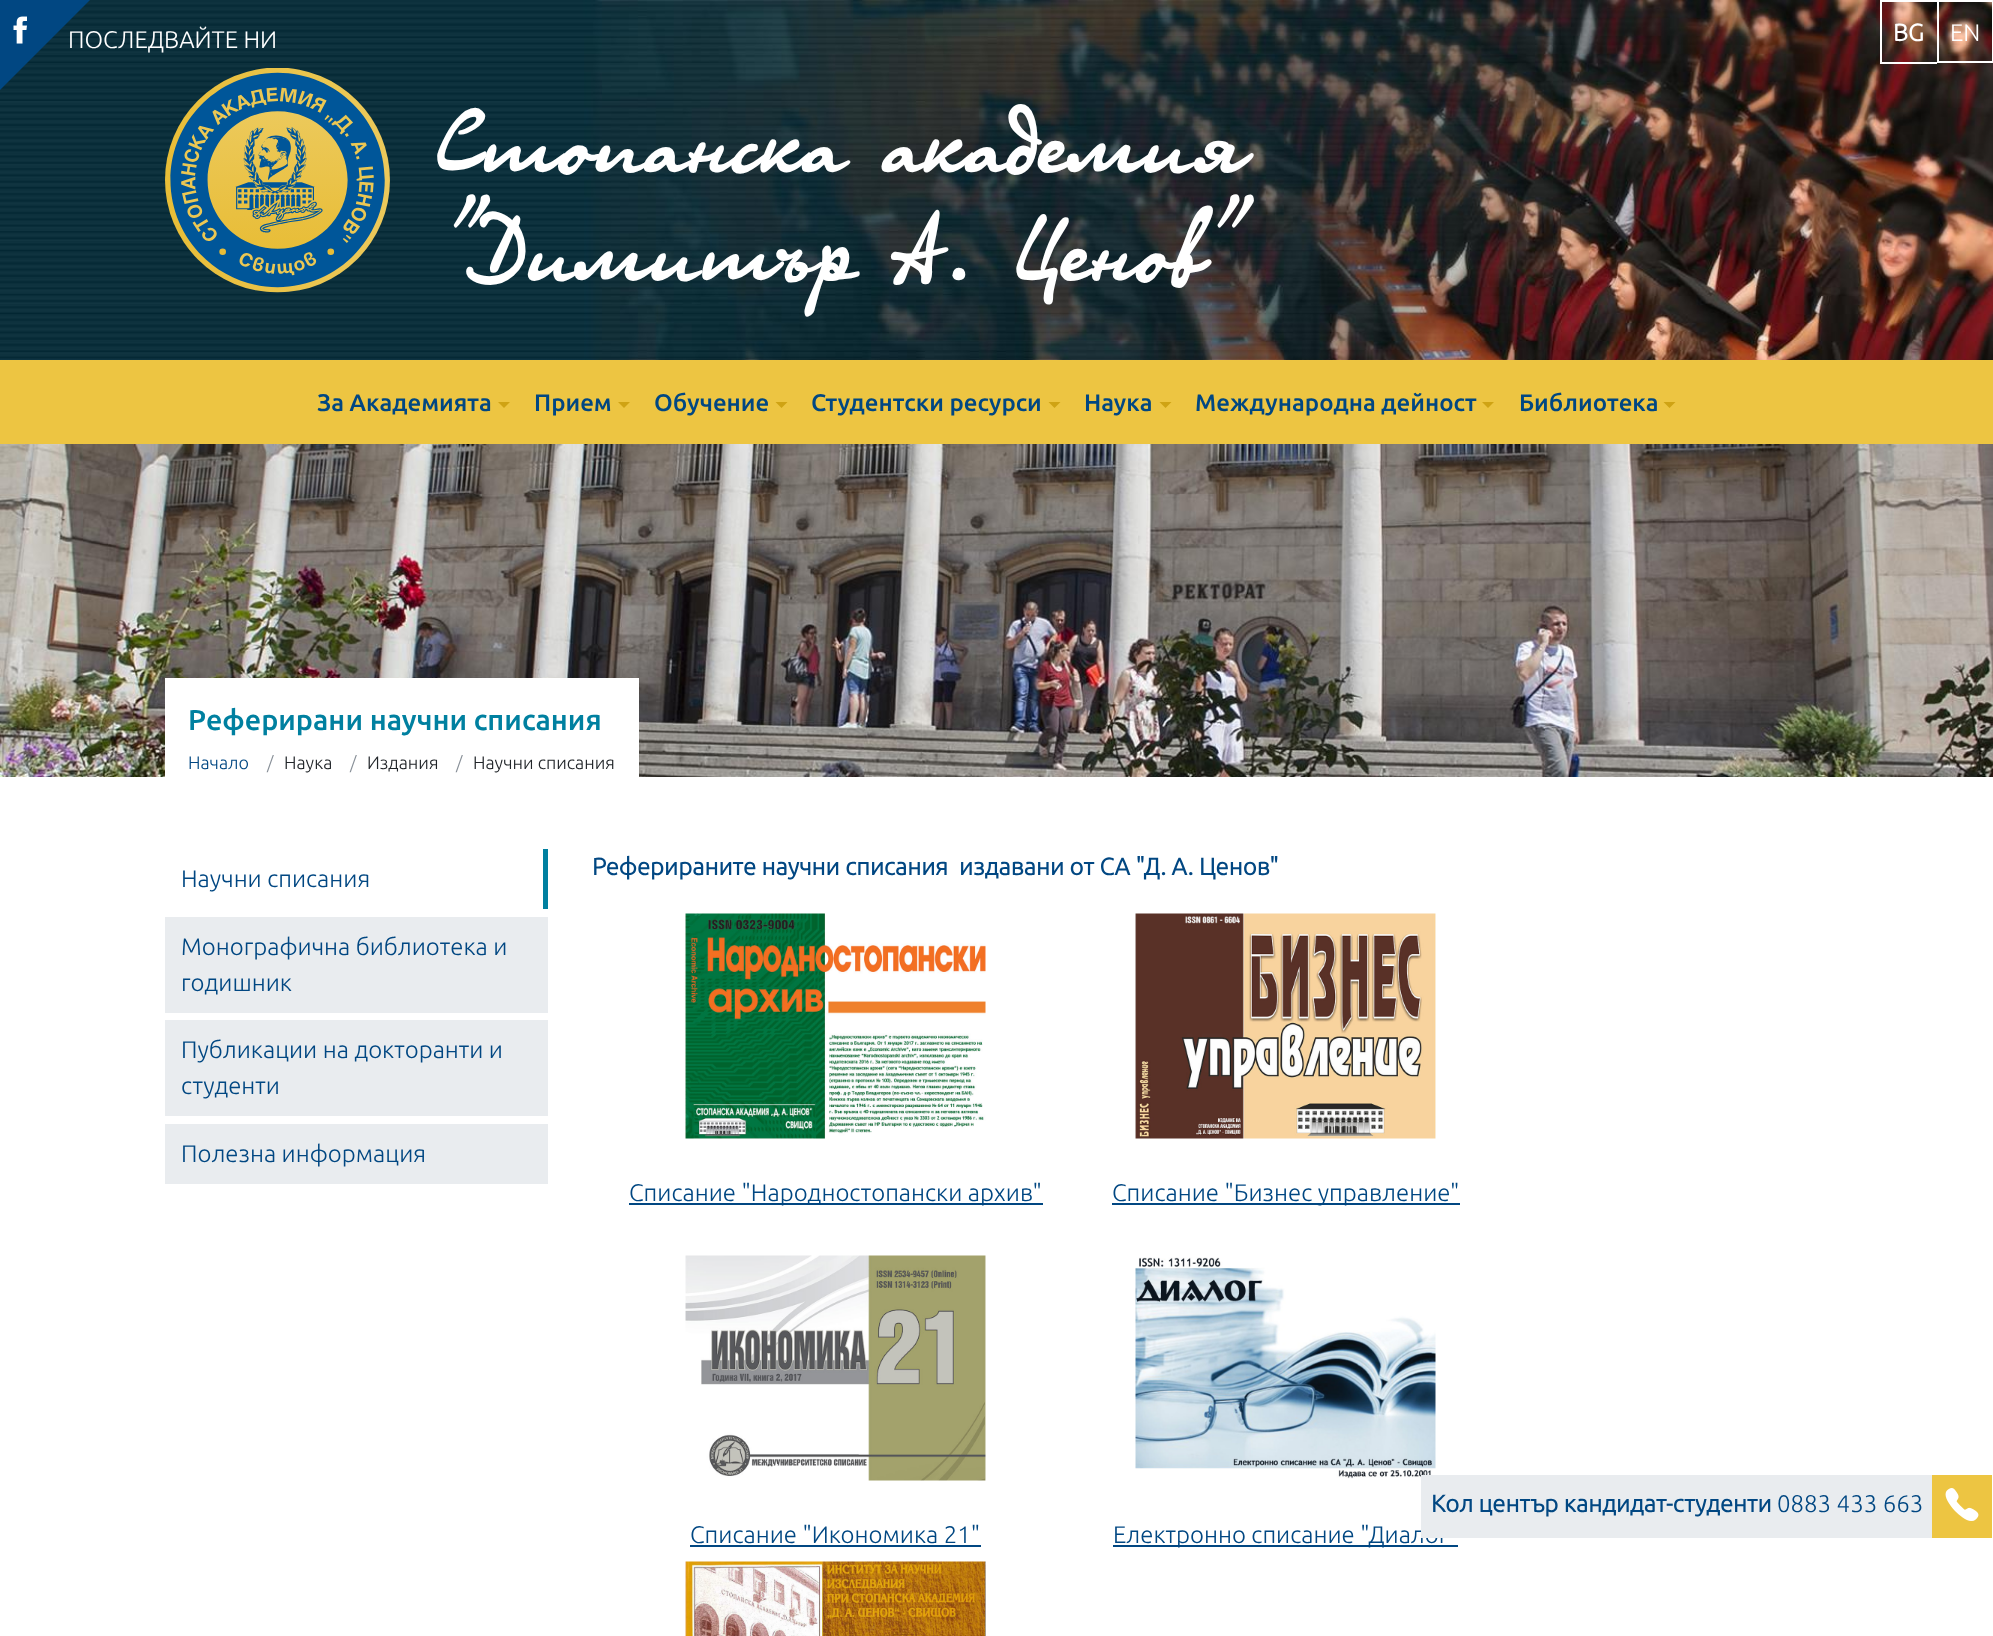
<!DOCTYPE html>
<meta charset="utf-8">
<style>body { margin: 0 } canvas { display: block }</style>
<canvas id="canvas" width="1993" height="1636"></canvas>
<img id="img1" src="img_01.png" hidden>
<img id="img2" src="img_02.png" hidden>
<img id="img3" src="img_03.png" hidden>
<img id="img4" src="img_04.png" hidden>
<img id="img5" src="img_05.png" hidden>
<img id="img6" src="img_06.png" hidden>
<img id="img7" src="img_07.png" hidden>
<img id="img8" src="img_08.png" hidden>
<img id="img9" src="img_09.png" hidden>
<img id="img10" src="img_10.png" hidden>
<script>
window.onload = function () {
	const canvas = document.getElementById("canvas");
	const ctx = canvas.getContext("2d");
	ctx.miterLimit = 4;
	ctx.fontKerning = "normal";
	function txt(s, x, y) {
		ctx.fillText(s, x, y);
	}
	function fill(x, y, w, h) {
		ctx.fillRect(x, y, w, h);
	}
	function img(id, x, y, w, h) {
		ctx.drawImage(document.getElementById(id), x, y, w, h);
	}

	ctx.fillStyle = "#FFFFFF";
	fill(0, 0, 1993, 1636);
	img("img1", 0, 0, 1993, 360);
	ctx.fillStyle = "#014782";
	ctx.beginPath();
	ctx.moveTo(0, 0);
	ctx.lineTo(90, 0);
	ctx.lineTo(0, 90);
	ctx.closePath();
	ctx.fill();
	img("img2", 13, 16, 14, 28);
	ctx.fillStyle = "#FFFFFF";
	fill(1880, 0, 57, 2);
	fill(1880, 62, 57, 2);
	fill(1880, 0, 2, 63);
	ctx.strokeStyle = "#FFFFFF";
	ctx.lineWidth = 2;
	ctx.strokeRect(1938, 1, 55, 61);
	img("img3", 165, 68, 225, 225);
	ctx.fillStyle = "#EDC542";
	fill(0, 360, 1993, 84);
	ctx.fillStyle = "#CFA314";
	ctx.beginPath();
	ctx.moveTo(498, 402);
	ctx.lineTo(510, 402);
	ctx.lineTo(504, 408);
	ctx.closePath();
	ctx.fill();
	ctx.beginPath();
	ctx.moveTo(618, 402);
	ctx.lineTo(630, 402);
	ctx.lineTo(624, 408);
	ctx.closePath();
	ctx.fill();
	ctx.beginPath();
	ctx.moveTo(775.5, 402);
	ctx.lineTo(787.5, 402);
	ctx.lineTo(781.5, 408);
	ctx.closePath();
	ctx.fill();
	ctx.beginPath();
	ctx.moveTo(1048.5, 402);
	ctx.lineTo(1060.5, 402);
	ctx.lineTo(1054.5, 408);
	ctx.closePath();
	ctx.fill();
	ctx.beginPath();
	ctx.moveTo(1159.5, 402);
	ctx.lineTo(1171.5, 402);
	ctx.lineTo(1165.5, 408);
	ctx.closePath();
	ctx.fill();
	ctx.beginPath();
	ctx.moveTo(1482, 402);
	ctx.lineTo(1494, 402);
	ctx.lineTo(1488, 408);
	ctx.closePath();
	ctx.fill();
	ctx.beginPath();
	ctx.moveTo(1663.5, 402);
	ctx.lineTo(1675.5, 402);
	ctx.lineTo(1669.5, 408);
	ctx.closePath();
	ctx.fill();
	img("img4", 0, 444, 1993, 333);
	ctx.fillStyle = "#FFFFFF";
	fill(165, 678, 474, 99);
	ctx.fillStyle = "#0080A0";
	fill(543, 849, 5, 60);
	ctx.fillStyle = "#E9ECEF";
	fill(165, 917, 383, 96);
	fill(165, 1020, 383, 96);
	fill(165, 1124, 383, 60);
	img("img5", 685, 913, 301, 226);
	ctx.fillStyle = "#014782";
	fill(629, 1203, 414, 2);
	img("img6", 1135, 913, 301, 226);
	fill(1112, 1203, 348, 2);
	img("img7", 685, 1255, 301, 226);
	fill(690, 1545, 291, 2);
	img("img8", 1135, 1257, 301, 222);
	fill(1113, 1545, 345, 2);
	img("img9", 685, 1561, 301, 75);
	ctx.fillStyle = "#EDC542";
	fill(1932, 1475, 60, 63);
	img("img10", 1945, 1488, 34, 33);
	ctx.font = "300 24px Ubuntu";
	ctx.fillStyle = "#FFFFFF";
	txt("ПОСЛЕДВАЙТЕ НИ", 68, 48);
	ctx.font = "bold 24px Ubuntu";
	txt("BG", 1893, 41);
	ctx.font = "300 24px Ubuntu";
	txt("EN", 1950, 41);
	ctx.font = "102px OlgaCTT";
	txt("Стопанска академия", 437, 173);
	txt("\"Димитър А. Ценов\"", 437, 281);
	ctx.font = "500 24px Ubuntu";
	ctx.fillStyle = "#014782";
	txt("За Академията", 317, 411);
	txt("Прием", 534, 411);
	txt("Обучение", 654, 411);
	txt("Студентски ресурси", 811, 411);
	txt("Наука", 1084, 411);
	txt("Международна дейност", 1195, 411);
	txt("Библиотека", 1519, 411);
	ctx.font = "500 28.75px Ubuntu";
	ctx.fillStyle = "#0080A0";
	txt("Реферирани научни списания", 188, 730);
	ctx.font = "300 18px Ubuntu";
	ctx.fillStyle = "#014782";
	txt("Начало", 188, 769);
	ctx.fillStyle = "#868E96";
	txt("/", 267, 769);
	ctx.fillStyle = "#212529";
	txt("Наука", 284, 769);
	ctx.fillStyle = "#868E96";
	txt("/", 350, 769);
	ctx.fillStyle = "#212529";
	txt("Издания", 367, 769);
	ctx.fillStyle = "#868E96";
	txt("/", 456, 769);
	ctx.fillStyle = "#212529";
	txt("Научни списания", 473, 769);
	ctx.font = "300 24px Ubuntu";
	ctx.fillStyle = "#014782";
	txt("Научни списания", 181, 887);
	txt("Монографична библиотека и", 181, 955);
	txt("годишник", 181, 991);
	txt("Публикации на докторанти и", 181, 1058);
	txt("студенти", 181, 1094);
	txt("Полезна информация", 181, 1162);
	ctx.font = "bold 24px Ubuntu";
	txt("Реферираните научни списания  издавани от СА \"Д. А. Ценов\"", 592, 875);
	ctx.font = "300 24px Ubuntu";
	txt("Списание \"Народностопански архив\"", 629, 1201);
	txt("Списание \"Бизнес управление\"", 1112, 1201);
	txt("Списание \"Икономика 21\"", 690, 1543);
	txt("Електронно списание \"Диалог", 1113, 1543);
	ctx.fillStyle = "#E9ECEF";
	fill(1421, 1475, 511, 63);
	ctx.font = "bold 24px Ubuntu";
	ctx.fillStyle = "#014782";
	txt("Кол център кандидат-студенти", 1431, 1512);
	ctx.font = "300 24px Ubuntu";
	txt("0883 433 663", 1777, 1512);
};
</script>
